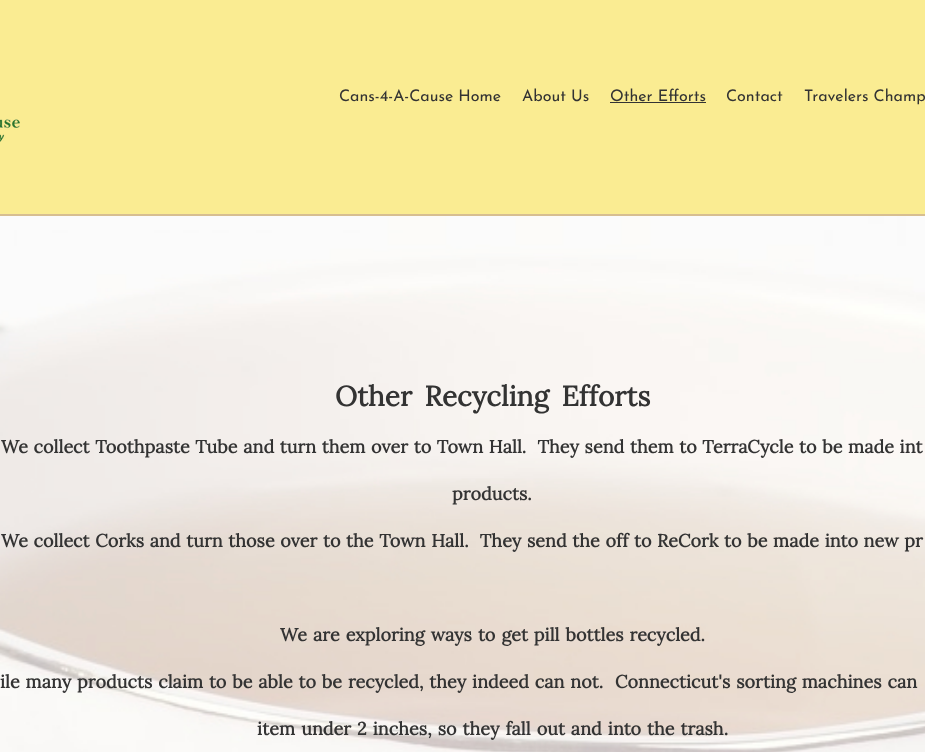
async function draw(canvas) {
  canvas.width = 925
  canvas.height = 752
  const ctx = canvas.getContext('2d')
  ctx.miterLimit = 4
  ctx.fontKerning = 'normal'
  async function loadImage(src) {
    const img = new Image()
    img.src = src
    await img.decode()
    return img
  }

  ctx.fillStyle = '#fff'
  ctx.fillRect(0, 0, 925, 752)
  ctx.fillStyle = '#faec92'
  ctx.fillRect(0, 0, 925, 214)
  ctx.font = '16px Josefin Sans'
  ctx.fillStyle = '#333'
  ctx.fillText('Cans-4-A-Cause Home', 339, 101)
  ctx.fillText('About Us', 522, 101)
  ctx.fillText('Other Efforts', 610, 101)
  ctx.fillRect(610, 102, 96, 1)
  ctx.fillText('Contact', 726, 101)
  ctx.fillText('Travelers Champ', 804, 101)
  ctx.drawImage(await loadImage('image0.png'), 0, 119, 20, 23)
  ctx.fillStyle = '#d7be91'
  ctx.fillRect(0, 214, 925, 2)
  ctx.drawImage(await loadImage('image1.png'), 0, 216, 925, 536)
  ctx.wordSpacing = '5px'
  ctx.font = 'bold 28px Lora'
  ctx.fillStyle = '#333'
  ctx.fillText('Other Recycling Efforts', 335, 406)
  ctx.wordSpacing = '0.9px'
  ctx.font = 'bold 18px Lora'
  ctx.fillText('We collect Toothpaste Tube and turn them over to Town Hall.  They send them to TerraCycle to be made int', 1, 453)
  ctx.wordSpacing = '0px'
  ctx.fillText('products.', 452, 500)
  ctx.wordSpacing = '0.9px'
  ctx.fillText('We collect Corks and turn those over to the Town Hall.  They send the off to ReCork to be made into new pr', 1, 547)
  ctx.wordSpacing = '1.25px'
  ctx.fillText('We are exploring ways to get pill bottles recycled.', 280, 641)
  ctx.wordSpacing = '1.1px'
  ctx.fillText('ile many products claim to be able to be recycled, they indeed can not.  Connecticut\'s sorting machines can', 0, 688)
  ctx.wordSpacing = '1.25px'
  ctx.fillText('item under 2 inches, so they fall out and into the trash.', 257, 735)
}

draw(document.querySelector('canvas'))
